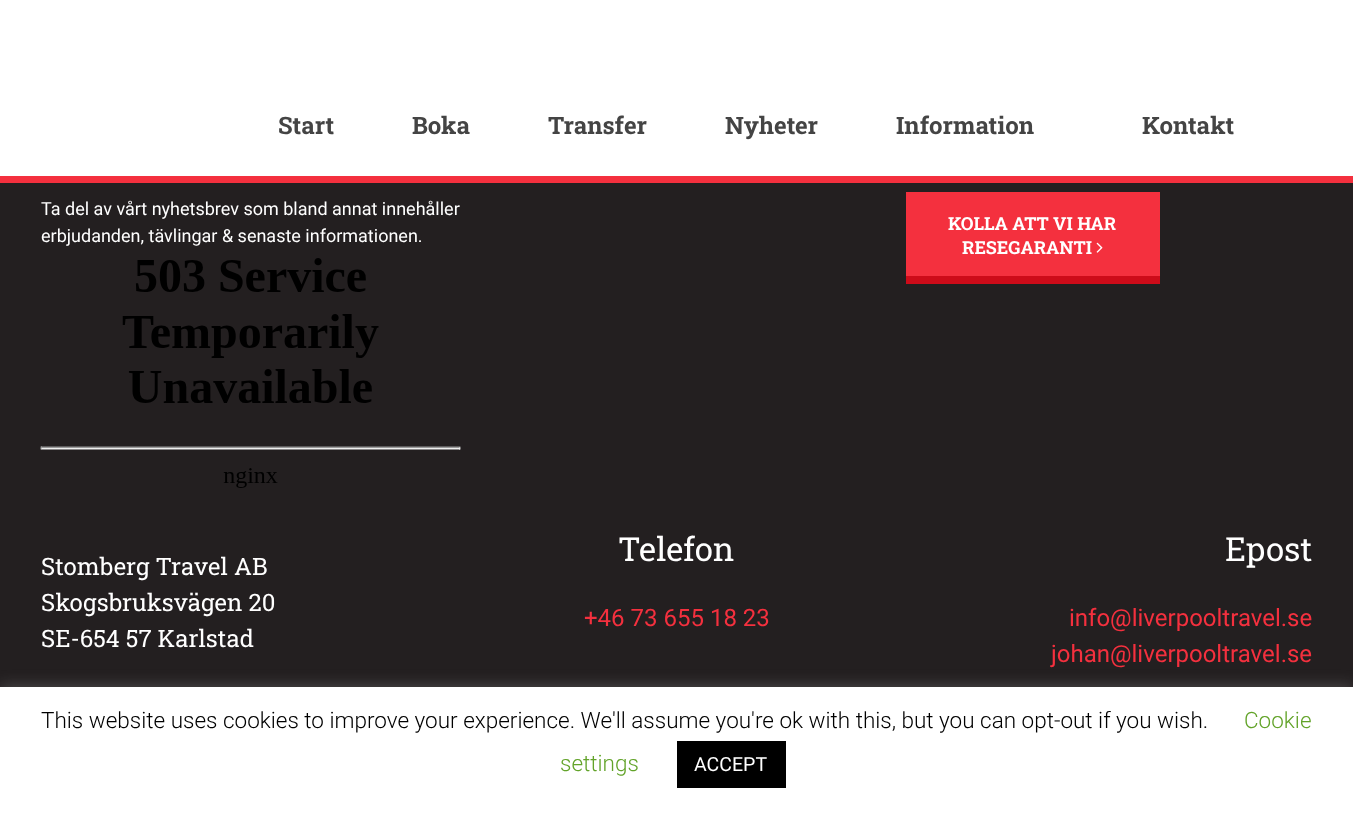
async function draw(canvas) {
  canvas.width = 1353
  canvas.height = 813
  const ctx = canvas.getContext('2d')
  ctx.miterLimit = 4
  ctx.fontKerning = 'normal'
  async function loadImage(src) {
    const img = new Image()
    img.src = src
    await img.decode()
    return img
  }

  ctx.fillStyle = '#231f20'
  ctx.fillRect(0, 0, 1353, 813)
  ctx.fillStyle = '#fff'
  ctx.fillRect(0, 0, 1353, 176)
  ctx.fillStyle = '#f4303e'
  ctx.fillRect(0, 176, 1353, 7)
  ctx.font = 'bold 24px Roboto Slab'
  ctx.fillStyle = '#444'
  ctx.fillText('Start', 278, 134)
  ctx.fillText('Boka', 412, 134)
  ctx.fillText('Transfer', 548, 134)
  ctx.fillText('Nyheter', 725, 134)
  ctx.fillText('Information', 896, 134)
  ctx.fillText('Kontakt', 1142, 134)
  ctx.font = '18px Roboto'
  ctx.fillStyle = '#fff'
  ctx.fillText('Ta del av vårt nyhetsbrev som bland annat innehåller', 41, 215)
  ctx.fillText('erbjudanden, tävlingar & senaste informationen.', 41, 242)
  ctx.drawImage(await loadImage('image0.png'), 40, 258, 421, 230)
  ctx.fillStyle = '#f4303e'
  ctx.fillRect(906, 192, 254, 84)
  ctx.fillStyle = '#cd0b19'
  ctx.fillRect(906, 276, 254, 8)
  ctx.font = 'bold 18px Roboto Slab'
  ctx.fillStyle = '#fff'
  ctx.fillText('KOLLA ATT VI HAR', 948, 230)
  ctx.fillText('RESEGARANTI', 962, 254)
  ctx.drawImage(await loadImage('image1.png'), 1096, 242, 7, 11)
  ctx.font = '24px Roboto Slab'
  ctx.fillText('Stomberg Travel AB', 41, 575)
  ctx.fillText('Skogsbruksvägen 20', 41, 611)
  ctx.fillText('SE-654 57 Karlstad', 41, 647)
  ctx.font = '33px Roboto Slab'
  ctx.fillText('Telefon', 618, 561)
  ctx.font = '24px Roboto'
  ctx.fillStyle = '#f4303e'
  ctx.fillText('+46 73 655 18 23', 584, 626)
  ctx.font = '33px Roboto Slab'
  ctx.fillStyle = '#fff'
  ctx.fillText('Epost', 1225, 561)
  ctx.font = '24px Roboto'
  ctx.fillStyle = '#f4303e'
  ctx.fillText('info@liverpooltravel.se', 1069, 626)
  ctx.fillText('johan@liverpooltravel.se', 1051, 662)
  ctx.fillStyle = '#acabab4d'
  ctx.filter = 'blur(7.5px)'
  ctx.beginPath()
  ctx.rect(0, 686, 1353, 126)
  ctx.fill()
  ctx.filter = 'none'
  ctx.fillStyle = '#fff'
  ctx.fillRect(0, 687, 1353, 126)
  ctx.font = '300 22.5px Roboto'
  ctx.fillStyle = '#000'
  ctx.fillText('This website uses cookies to improve your experience. We\'ll assume you\'re ok with this, but you can opt-out if you wish.', 41, 728)
  ctx.fillStyle = '#62a329'
  ctx.fillText('Cookie', 1244, 728)
  ctx.fillText('settings', 560, 771)
  ctx.fillStyle = '#000'
  ctx.fillRect(677, 741, 109, 47)
  ctx.font = '19.5px Roboto'
  ctx.fillStyle = '#fff'
  ctx.fillText('ACCEPT', 694, 771)
}

draw(document.querySelector('canvas'))
